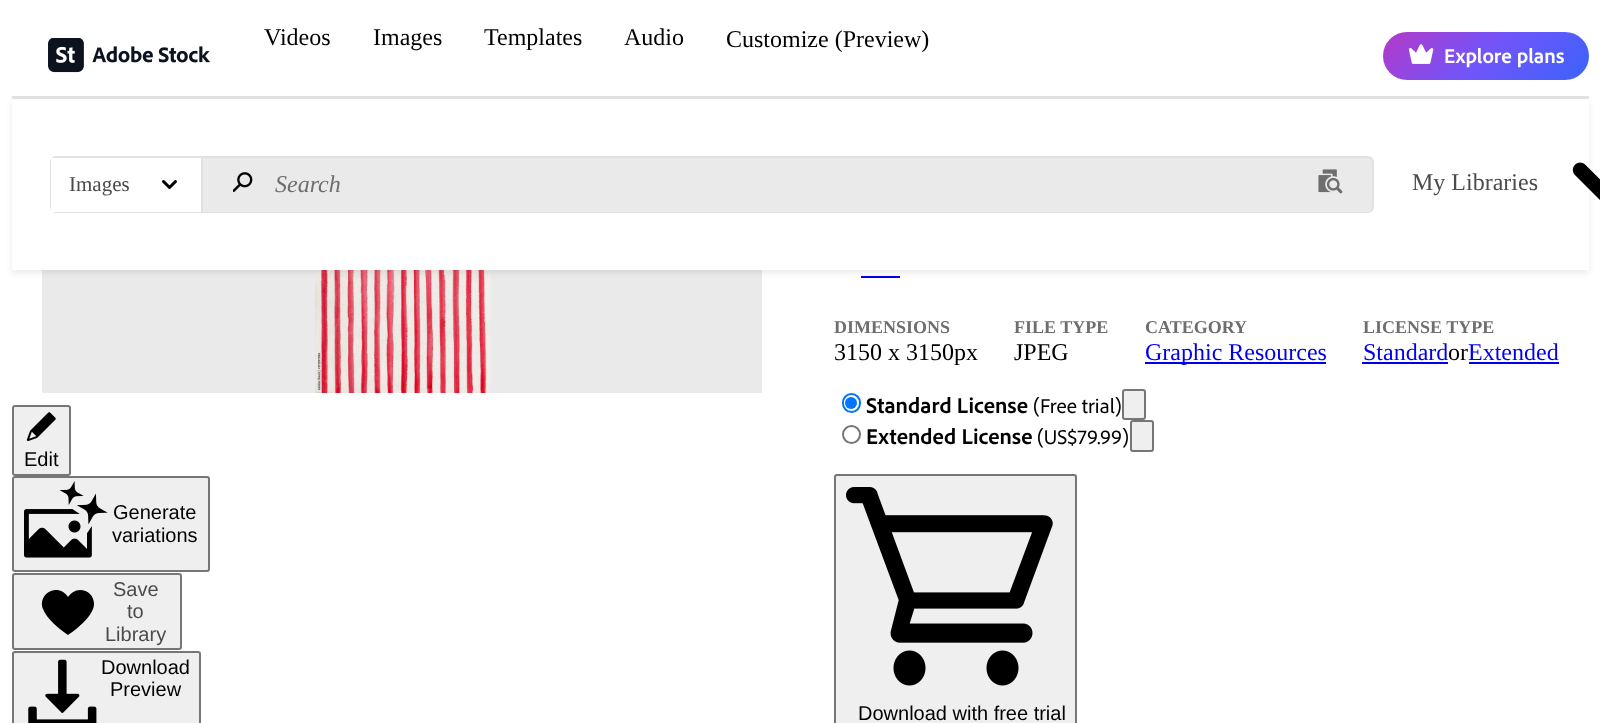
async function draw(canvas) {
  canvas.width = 1600
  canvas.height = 723
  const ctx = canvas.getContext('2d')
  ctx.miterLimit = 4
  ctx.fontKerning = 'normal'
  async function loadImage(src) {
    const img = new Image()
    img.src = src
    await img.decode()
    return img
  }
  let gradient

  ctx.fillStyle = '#fff'
  ctx.fillRect(0, 0, 1600, 723)
  ctx.fillStyle = '#eaeaea'
  ctx.fillRect(42, 270, 720, 123)
  ctx.drawImage(await loadImage('image6.png'), 315, 270, 176, 123)
  ctx.fillStyle = '#00e'
  ctx.fillRect(861, 276, 39, 2)
  ctx.fillStyle = '#3434341a'
  ctx.filter = 'blur(3px)'
  ctx.beginPath()
  ctx.rect(12, 102, 1577, 171)
  ctx.fill()
  ctx.filter = 'none'
  ctx.fillStyle = '#e1e1e1'
  ctx.fillRect(12, 96, 1577, 3)
  ctx.drawImage(await loadImage('image0.png'), 48, 38, 162, 35)
  ctx.font = '24px Liberation Serif'
  ctx.fillStyle = '#000'
  ctx.fillText('Videos', 264, 45)
  ctx.fillText('Images', 373, 45)
  ctx.fillText('Templates', 484, 45)
  ctx.fillText('Audio', 624, 45)
  ctx.fillText('Customize (Preview)', 726, 47)
  gradient = ctx.createLinearGradient(1422, -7.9, 1549, 119)
  gradient.addColorStop(0, '#b539c8')
  gradient.addColorStop(0.5, '#7155fa')
  gradient.addColorStop(1, '#3b63fb')
  ctx.fillStyle = gradient
  ctx.beginPath()
  ctx.roundRect(1383, 32, 206, 48, 24)
  ctx.fill()
  ctx.drawImage(await loadImage('image1.png'), 1408, 44, 26, 20)
  ctx.font = 'bold 21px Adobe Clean'
  ctx.fillStyle = '#fff'
  ctx.fillText('Explore plans', 1444, 63)
  ctx.fillRect(12, 99, 1577, 171)
  ctx.beginPath()
  ctx.roundRect(51, 157, 151, 55, [5, 0, 0, 5])
  ctx.strokeStyle = '#e1e1e1'
  ctx.lineWidth = 2
  ctx.stroke()
  ctx.fillRect(51, 158, 150, 54)
  ctx.font = '21px Liberation Serif'
  ctx.fillStyle = '#4b4b4b'
  ctx.fillText('Images', 69, 191)
  ctx.drawImage(await loadImage('image2.png'), 162, 180, 15, 9)
  ctx.fillStyle = '#eaeaea'
  ctx.beginPath()
  ctx.roundRect(203, 158, 1170, 54, [0, 5, 5, 0])
  ctx.fill()
  ctx.fillStyle = '#e1e1e1'
  ctx.beginPath()
  ctx.moveTo(202, 156)
  ctx.lineTo(1368, 156)
  ctx.bezierCurveTo(1371, 156, 1374, 159, 1374, 162)
  ctx.lineTo(1374, 207)
  ctx.bezierCurveTo(1374, 210, 1371, 213, 1368, 213)
  ctx.lineTo(202, 213)
  ctx.closePath()
  ctx.moveTo(202, 158)
  ctx.lineTo(1368, 158)
  ctx.bezierCurveTo(1370, 158, 1372, 160, 1372, 162)
  ctx.lineTo(1372, 207)
  ctx.bezierCurveTo(1372, 209, 1370, 212, 1368, 212)
  ctx.lineTo(202, 212)
  ctx.closePath()
  ctx.fill('evenodd')
  ctx.drawImage(await loadImage('image3.png'), 233, 172, 20, 20)
  ctx.font = 'italic 24px Liberation Serif'
  ctx.fillStyle = '#6e6e6e'
  ctx.fillText('Search', 275, 192)
  ctx.drawImage(await loadImage('image4.png'), 1318, 169, 25, 25)
  ctx.font = '24px Liberation Serif'
  ctx.fillStyle = '#4b4b4b'
  ctx.fillText('My Libraries', 1412, 190)
  ctx.drawImage(await loadImage('image5.png'), 1572, 162, 28, 38)
  ctx.fillStyle = '#efefef'
  ctx.beginPath()
  ctx.roundRect(13, 406, 57, 69, 2)
  ctx.fill()
  ctx.strokeStyle = '#767676'
  ctx.stroke()
  ctx.drawImage(await loadImage('image7.png'), 26, 412, 30, 29)
  ctx.font = '20px Liberation Sans'
  ctx.fillStyle = '#000'
  ctx.fillText('Edit', 24, 466)
  ctx.fillStyle = '#efefef'
  ctx.beginPath()
  ctx.roundRect(13, 477, 196, 94, 2)
  ctx.fill()
  ctx.stroke()
  ctx.drawImage(await loadImage('image8.png'), 24, 481, 84, 77)
  ctx.fillStyle = '#000'
  ctx.fillText('Generate', 113, 519)
  ctx.fillText('variations', 112, 542)
  ctx.fillStyle = '#efefef'
  ctx.beginPath()
  ctx.roundRect(13, 574, 168, 75, 2)
  ctx.fill()
  ctx.stroke()
  ctx.fillStyle = '#000'
  ctx.beginPath()
  ctx.moveTo(80, 590)
  ctx.bezierCurveTo(75, 590, 71, 593, 68, 597)
  ctx.bezierCurveTo(59, 582, 37, 593, 43, 609)
  ctx.bezierCurveTo(47, 619, 59, 629, 68, 635)
  ctx.bezierCurveTo(68, 635, 94, 618, 94, 604)
  ctx.bezierCurveTo(94, 596, 88, 590, 80, 590)
  ctx.closePath()
  ctx.fill('evenodd')
  ctx.fillStyle = '#4b4b4b'
  ctx.fillText('Save', 113, 596)
  ctx.fillText('to', 127, 618)
  ctx.fillText('Library', 105, 641)
  ctx.fillStyle = '#efefef'
  ctx.beginPath()
  ctx.roundRect(13, 652, 187, 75, 2)
  ctx.fill()
  ctx.stroke()
  ctx.drawImage(await loadImage('image9.png'), 28, 659, 69, 64)
  ctx.fillStyle = '#000'
  ctx.fillText('Download', 101, 674)
  ctx.fillText('Preview', 110, 696)
  ctx.font = 'bold 18px Liberation Serif'
  ctx.fillStyle = '#6e6e6e'
  ctx.fillText('DIMENSIONS', 834, 333)
  ctx.font = '24px Liberation Serif'
  ctx.fillStyle = '#000'
  ctx.fillText('3150 x 3150px', 834, 360)
  ctx.font = 'bold 18px Liberation Serif'
  ctx.fillStyle = '#6e6e6e'
  ctx.fillText('FILE TYPE', 1014, 333)
  ctx.font = '24px Liberation Serif'
  ctx.fillStyle = '#000'
  ctx.fillText('JPEG', 1014, 360)
  ctx.font = 'bold 18px Liberation Serif'
  ctx.fillStyle = '#6e6e6e'
  ctx.fillText('CATEGORY', 1145, 333)
  ctx.fillStyle = '#00e'
  ctx.fillRect(1145, 362, 181, 2)
  ctx.font = '24px Liberation Serif'
  ctx.fillText('Graphic Resources', 1145, 360)
  ctx.font = 'bold 18px Liberation Serif'
  ctx.fillStyle = '#6e6e6e'
  ctx.fillText('LICENSE TYPE', 1363, 333)
  ctx.font = '24px Liberation Serif'
  ctx.fillStyle = '#00e'
  ctx.fillText('Standard', 1363, 360)
  ctx.fillStyle = '#000'
  ctx.fillText('or', 1448, 360)
  ctx.fillStyle = '#00e'
  ctx.fillRect(1362, 362, 86, 2)
  ctx.fillRect(1469, 362, 90, 2)
  ctx.fillText('Extended', 1468, 360)
  ctx.beginPath()
  ctx.roundRect(843, 394, 17, 18, 8.5)
  ctx.strokeStyle = '#0075ff'
  ctx.stroke()
  ctx.fillStyle = '#0075ff'
  ctx.beginPath()
  ctx.arc(851, 403, 6, 0, 2 * Math.PI)
  ctx.fill()
  ctx.font = 'bold 22.5px Adobe Clean'
  ctx.fillStyle = '#000'
  ctx.fillText('Standard License', 866, 413)
  ctx.font = '21px Adobe Clean'
  ctx.fillText('(Free trial)', 1033, 413)
  ctx.fillStyle = '#efefef'
  ctx.beginPath()
  ctx.roundRect(1123, 390, 22, 29, 2)
  ctx.fill()
  ctx.strokeStyle = '#767676'
  ctx.stroke()
  ctx.beginPath()
  ctx.arc(851.5, 434.5, 8.5, 0, 2 * Math.PI)
  ctx.stroke()
  ctx.font = 'bold 22.5px Adobe Clean'
  ctx.fillStyle = '#000'
  ctx.fillText('Extended License', 866, 444)
  ctx.font = '21px Adobe Clean'
  ctx.fillText('(US$79.99)', 1037, 444)
  ctx.fillStyle = '#efefef'
  ctx.beginPath()
  ctx.roundRect(1131, 421, 22, 30, 2)
  ctx.fill()
  ctx.stroke()
  ctx.beginPath()
  ctx.roundRect(835, 475, 241, 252, 2)
  ctx.fill()
  ctx.stroke()
  ctx.drawImage(await loadImage('image10.png'), 846, 487, 207, 199)
  ctx.font = '20px Liberation Sans'
  ctx.fillStyle = '#000'
  ctx.fillText('Download with free trial', 858, 720)
}

draw(document.querySelector('canvas'))
